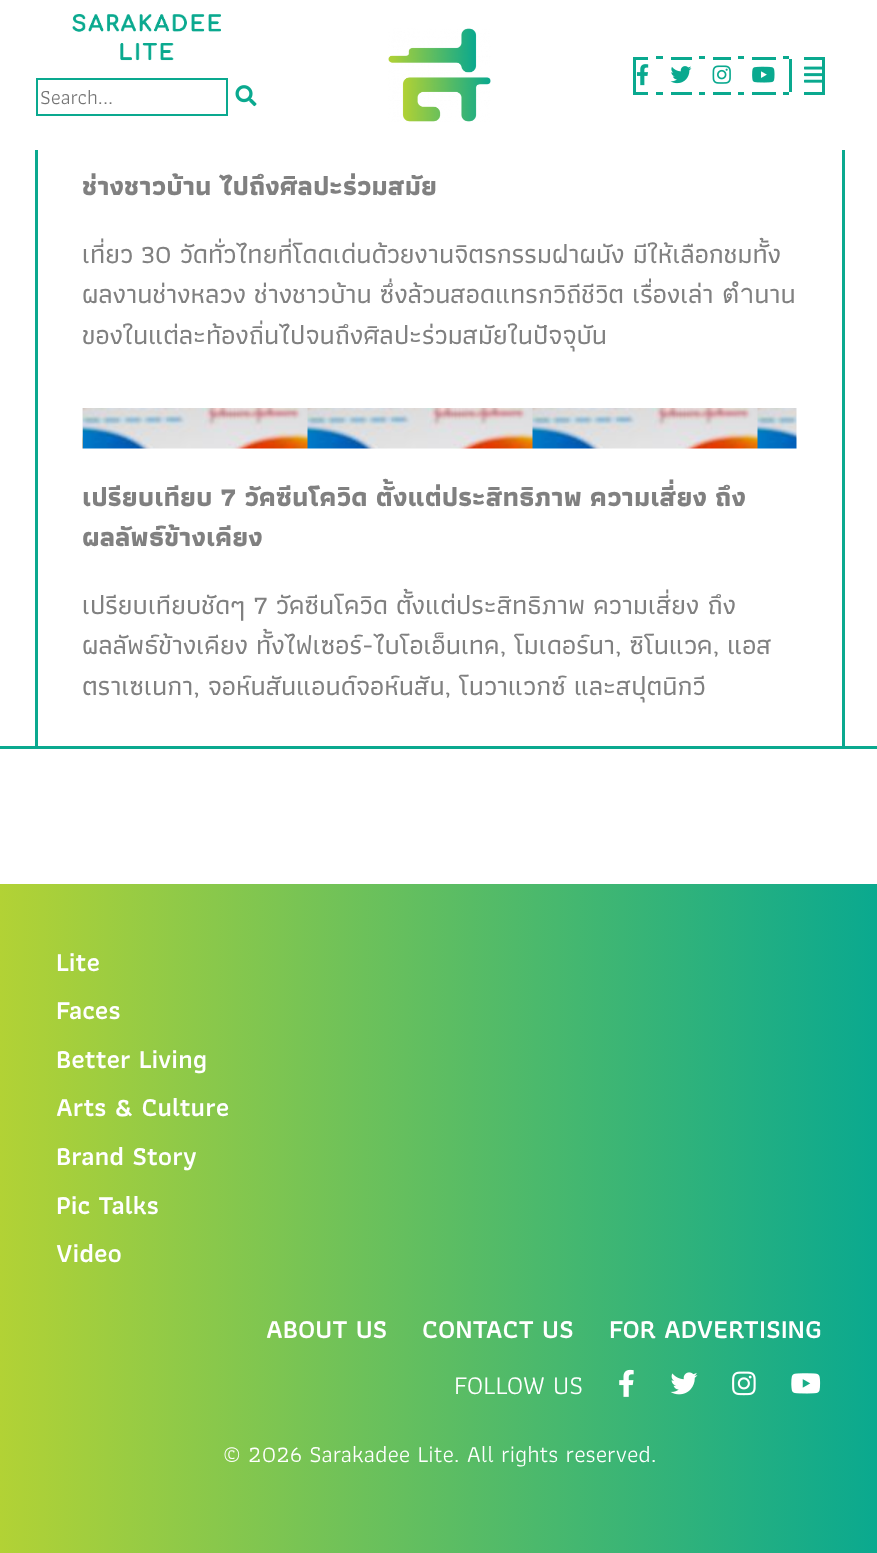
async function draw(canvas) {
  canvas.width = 877
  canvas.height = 1553
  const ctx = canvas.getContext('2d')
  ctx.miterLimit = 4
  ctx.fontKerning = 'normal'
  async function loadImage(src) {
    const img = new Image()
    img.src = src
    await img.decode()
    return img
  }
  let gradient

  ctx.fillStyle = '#fff'
  ctx.fillRect(0, 0, 877, 1553)
  ctx.drawImage(await loadImage('image0.png'), 388, 28, 103, 94)
  ctx.fillStyle = '#0aa98f'
  ctx.fillRect(633, 57, 15, 3)
  ctx.fillRect(633, 92, 15, 3)
  ctx.fillRect(633, 57, 3, 38)
  ctx.fillRect(656, 56, 7, 3)
  ctx.fillRect(656, 92, 7, 3)
  ctx.fillRect(671, 57, 21, 3)
  ctx.fillRect(671, 92, 21, 3)
  ctx.fillRect(699, 56, 6, 3)
  ctx.fillRect(699, 92, 6, 3)
  ctx.fillRect(713, 57, 18, 3)
  ctx.fillRect(713, 92, 18, 3)
  ctx.fillRect(738, 56, 6, 3)
  ctx.fillRect(738, 92, 6, 3)
  ctx.fillRect(752, 57, 24, 3)
  ctx.fillRect(752, 92, 24, 3)
  ctx.fillRect(783, 56, 6, 3)
  ctx.fillRect(783, 92, 6, 3)
  ctx.fillRect(804, 57, 21, 3)
  ctx.fillRect(822, 57, 3, 38)
  ctx.fillRect(804, 92, 21, 3)
  ctx.drawImage(await loadImage('image1.png'), 636, 64, 13, 22)
  ctx.drawImage(await loadImage('image2.png'), 670, 66, 22, 18)
  ctx.drawImage(await loadImage('image3.png'), 712, 65, 19, 19)
  ctx.drawImage(await loadImage('image4.png'), 752, 66, 23, 17)
  ctx.fillRect(789, 59, 3, 33)
  ctx.drawImage(await loadImage('image5.png'), 804, 66, 18, 17)
  ctx.drawImage(await loadImage('image6.png'), 72, 14, 149, 47)
  ctx.strokeStyle = '#0aa98f'
  ctx.lineWidth = 2
  ctx.strokeRect(37, 79, 190, 36)
  ctx.font = '21px Athiti'
  ctx.fillStyle = '#757575'
  ctx.fillText('Search...', 40, 104)
  ctx.drawImage(await loadImage('image7.png'), 235, 85, 22, 22)
  ctx.fillStyle = '#0aa98f'
  ctx.fillRect(0, 746, 877, 3)
  ctx.fillRect(842, 150, 3, 596)
  ctx.fillRect(35, 150, 3, 596)
  ctx.font = 'bold 27px Athiti'
  ctx.fillStyle = '#808080'
  ctx.fillText('ช่างชาวบ้าน ไปถึงศิลปะร่วมสมัย', 82, 195)
  ctx.font = '500 27px Athiti'
  ctx.fillText('เที่ยว 30 วัดทั่วไทยที่โดดเด่นด้วยงานจิตรกรรมฝาผนัง มีให้เลือกชมทั้ง', 82, 263)
  ctx.fillText('ผลงานช่างหลวง ช่างชาวบ้าน ซึ่งล้วนสอดแทรกวิถีชีวิต เรื่องเล่า ตำนาน', 82, 303)
  ctx.fillText('ของในแต่ละท้องถิ่นไปจนถึงศิลปะร่วมสมัยในปัจจุบัน', 82, 344)
  ctx.drawImage(await loadImage('image8.png'), 82, 408, 715, 41)
  ctx.font = 'bold 27px Athiti'
  ctx.fillText('เปรียบเทียบ 7 วัคซีนโควิด ตั้งแต่ประสิทธิภาพ ความเสี่ยง ถึง', 82, 506)
  ctx.fillText('ผลลัพธ์ข้างเคียง', 82, 546)
  ctx.font = '500 27px Athiti'
  ctx.fillText('เปรียบเทียบชัดๆ 7 วัคซีนโควิด ตั้งแต่ประสิทธิภาพ ความเสี่ยง ถึง', 82, 614)
  ctx.fillText('ผลลัพธ์ข้างเคียง ทั้งไฟเซอร์-ไบโอเอ็นเทค, โมเดอร์นา, ซิโนแวค, แอส', 82, 654)
  ctx.fillText('ตราเซเนกา, จอห์นสันแอนด์จอห์นสัน, โนวาแวกซ์ และสปุตนิกวี', 82, 695)
  gradient = ctx.createLinearGradient(0, 1219, 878, 1219)
  gradient.addColorStop(0, '#b2d235')
  gradient.addColorStop(1, '#0aa98f')
  ctx.fillStyle = gradient
  ctx.fillRect(0, 884, 877, 669)
  ctx.font = '600 27px Athiti'
  ctx.fillStyle = '#fff'
  ctx.fillText('Lite', 56, 971)
  ctx.fillText('Faces', 56, 1019)
  ctx.fillText('Better Living', 56, 1068)
  ctx.fillText('Arts & Culture', 56, 1116)
  ctx.fillText('Brand Story', 56, 1165)
  ctx.fillText('Pic Talks', 56, 1214)
  ctx.fillText('Video', 56, 1262)
  ctx.fillText('ABOUT US', 266, 1338)
  ctx.fillText('CONTACT US', 422, 1338)
  ctx.fillText('FOR ADVERTISING', 609, 1338)
  ctx.font = '27px Athiti'
  ctx.fillText('FOLLOW US', 454, 1394)
  ctx.drawImage(await loadImage('image9.png'), 619, 1369, 15, 28)
  ctx.drawImage(await loadImage('image10.png'), 670, 1372, 28, 23)
  ctx.drawImage(await loadImage('image11.png'), 732, 1371, 24, 25)
  ctx.drawImage(await loadImage('image12.png'), 791, 1373, 30, 21)
  ctx.font = '24px Athiti'
  ctx.fillText('© 2026 Sarakadee Lite. All rights reserved.', 223, 1462)
}

draw(document.querySelector('canvas'))
